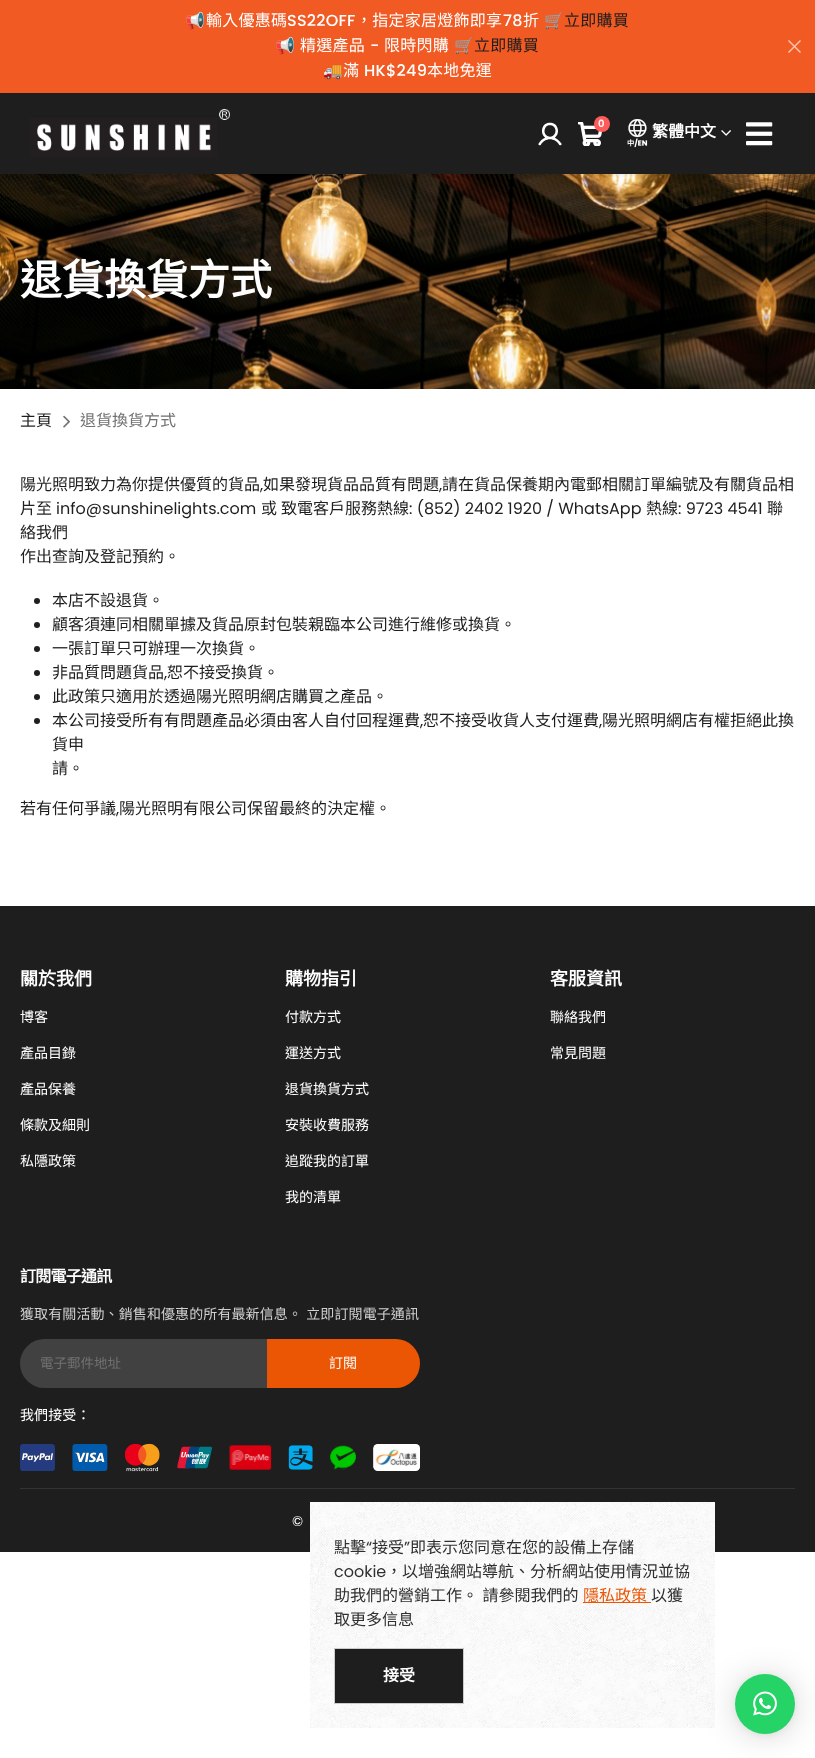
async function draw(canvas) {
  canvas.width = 815
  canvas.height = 1758
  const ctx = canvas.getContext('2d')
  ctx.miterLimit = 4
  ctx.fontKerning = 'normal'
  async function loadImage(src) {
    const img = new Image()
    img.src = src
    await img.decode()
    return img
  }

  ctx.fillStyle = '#fff'
  ctx.fillRect(0, 0, 815, 1758)
  ctx.fillStyle = '#f15a22'
  ctx.fillRect(0, 0, 815, 93)
  ctx.letterSpacing = '0.25px'
  ctx.font = '16px Noto Color Emoji'
  ctx.fillStyle = '#fff'
  ctx.fillText('📢', 185, 26)
  ctx.font = '16px Noto Sans CJK HK'
  ctx.fillText('輸入優惠碼', 206, 26)
  ctx.font = '500 16px Poppins'
  ctx.fillText('SS22OFF', 287, 26)
  ctx.font = '16px Noto Sans CJK HK'
  ctx.fillText('，指定家居燈飾即享', 356, 26)
  ctx.font = '500 16px Poppins'
  ctx.fillText('78', 503, 26)
  ctx.font = '16px Noto Sans CJK HK'
  ctx.fillText('折', 523, 26)
  ctx.font = '16px Noto Color Emoji'
  ctx.fillText('🛒', 544, 26)
  ctx.font = '16px Noto Sans CJK HK'
  ctx.fillStyle = '#1e1e1e'
  ctx.fillText('立即購買', 564, 26)
  ctx.font = '16px Noto Color Emoji'
  ctx.fillStyle = '#fff'
  ctx.fillText('📢', 275, 51)
  ctx.font = '16px Noto Sans CJK HK'
  ctx.fillText('精選產品', 300, 51)
  ctx.font = '500 16px Poppins'
  ctx.fillText('-', 370, 51)
  ctx.font = '16px Noto Sans CJK HK'
  ctx.fillText('限時閃購', 384, 51)
  ctx.font = '16px Noto Color Emoji'
  ctx.fillText('🛒', 454, 51)
  ctx.font = '16px Noto Sans CJK HK'
  ctx.fillStyle = '#1e1e1e'
  ctx.fillText('立即購買', 474, 51)
  ctx.font = '16px Noto Color Emoji'
  ctx.fillStyle = '#fff'
  ctx.fillText('🚚', 323, 76)
  ctx.font = '16px Noto Sans CJK HK'
  ctx.fillText('滿', 343, 76)
  ctx.font = '500 16px Poppins'
  ctx.fillText('HK$249', 364, 76)
  ctx.font = '16px Noto Sans CJK HK'
  ctx.fillText('本地免運', 427, 76)
  ctx.fillStyle = '#fac5b2'
  ctx.beginPath()
  ctx.moveTo(789, 40)
  ctx.lineTo(801, 52)
  ctx.lineTo(800, 53)
  ctx.lineTo(788, 41)
  ctx.closePath()
  ctx.fill()
  ctx.beginPath()
  ctx.moveTo(800, 40)
  ctx.lineTo(801, 41)
  ctx.lineTo(789, 53)
  ctx.lineTo(788, 52)
  ctx.closePath()
  ctx.fill()
  ctx.drawImage(await loadImage('image6.png'), 0, 174, 815, 215)
  ctx.fillStyle = '#0000000f'
  ctx.filter = 'blur(1px)'
  ctx.beginPath()
  ctx.rect(0, 95, 815, 81)
  ctx.fill()
  ctx.filter = 'none'
  ctx.fillStyle = '#1e1e1e'
  ctx.fillRect(0, 93, 815, 81)
  ctx.drawImage(await loadImage('image0.png'), 30, 109, 200, 49)
  ctx.drawImage(await loadImage('image1.png'), 538, 122, 24, 24)
  ctx.drawImage(await loadImage('image2.png'), 578, 122, 24, 24)
  ctx.fillStyle = '#ff5b5b'
  ctx.beginPath()
  ctx.arc(602, 124, 8, 0, 2 * Math.PI)
  ctx.fill()
  ctx.letterSpacing = '0px'
  ctx.font = '600 10px Poppins'
  ctx.fillStyle = '#fff'
  ctx.fillText('0', 598, 127)
  ctx.drawImage(await loadImage('image3.png'), 627, 119, 21, 29)
  ctx.font = 'bold 16px Noto Sans CJK HK'
  ctx.fillText('繁體中文', 652, 137)
  ctx.drawImage(await loadImage('image4.png'), 721, 130, 10, 6)
  ctx.drawImage(await loadImage('image5.png'), 746, 122, 27, 24)
  ctx.font = 'bold 42px Noto Sans CJK HK'
  ctx.fillText('退貨換貨方式', 20, 295)
  ctx.font = '16px Noto Sans CJK HK'
  ctx.fillStyle = '#1e1e1e'
  ctx.fillText('主頁', 20, 426)
  ctx.drawImage(await loadImage('image7.png'), 63, 415, 7, 13)
  ctx.fillStyle = '#717171'
  ctx.fillText('退貨換貨方式', 80, 426)
  ctx.fillStyle = '#1e1e1e'
  ctx.fillText('陽光照明致力為你提供優質的貨品', 20, 490)
  ctx.font = '16px Poppins'
  ctx.fillText(',', 260, 490)
  ctx.font = '16px Noto Sans CJK HK'
  ctx.fillText('如果發現貨品品質有問題', 263, 490)
  ctx.font = '16px Poppins'
  ctx.fillText(',', 439, 490)
  ctx.font = '16px Noto Sans CJK HK'
  ctx.fillText('請在貨品保養期內電郵相關訂單編號及有關貨品相', 442, 490)
  ctx.fillText('片至', 20, 514)
  ctx.font = '16px Poppins'
  ctx.fillText('info@sunshinelights.com', 56, 514)
  ctx.font = '16px Noto Sans CJK HK'
  ctx.fillText('或', 261, 514)
  ctx.fillText('致電客戶服務熱線', 281, 514)
  ctx.font = '16px Poppins'
  ctx.fillText(': (852) 2402 1920 / WhatsApp', 409, 514)
  ctx.font = '16px Noto Sans CJK HK'
  ctx.fillText('熱線', 646, 514)
  ctx.font = '16px Poppins'
  ctx.fillText(': 9723 4541', 678, 514)
  ctx.font = '16px Noto Sans CJK HK'
  ctx.fillText('聯', 767, 514)
  ctx.fillText('絡我們', 20, 538)
  ctx.fillText('作出查詢及登記預約。', 20, 562)
  ctx.beginPath()
  ctx.arc(37, 601, 3, 0, 2 * Math.PI)
  ctx.fill()
  ctx.fillText('本店不設退貨。', 52, 606)
  ctx.beginPath()
  ctx.arc(37, 625, 3, 0, 2 * Math.PI)
  ctx.fill()
  ctx.fillText('顧客須連同相關單據及貨品原封包裝親臨本公司進行維修或換貨。', 52, 630)
  ctx.beginPath()
  ctx.arc(37, 649, 3, 0, 2 * Math.PI)
  ctx.fill()
  ctx.fillText('一張訂單只可辦理一次換貨。', 52, 654)
  ctx.beginPath()
  ctx.arc(37, 673, 3, 0, 2 * Math.PI)
  ctx.fill()
  ctx.fillText('非品質問題貨品', 52, 678)
  ctx.fillText('恕不接受換貨。', 167, 678)
  ctx.font = '16px Poppins'
  ctx.fillText(',', 164, 678)
  ctx.beginPath()
  ctx.arc(37, 697, 3, 0, 2 * Math.PI)
  ctx.fill()
  ctx.font = '16px Noto Sans CJK HK'
  ctx.fillText('此政策只適用於透過陽光照明網店購買之產品。', 52, 702)
  ctx.beginPath()
  ctx.arc(37, 721, 3, 0, 2 * Math.PI)
  ctx.fill()
  ctx.fillText('本公司接受所有有問題產品必須由客人自付回程運費', 52, 726)
  ctx.fillText('恕不接受收貨人支付運費', 423, 726)
  ctx.fillText('陽光照明網店有權拒絕此換', 602, 726)
  ctx.font = '16px Poppins'
  ctx.fillText(',', 420, 726)
  ctx.fillText(',', 599, 726)
  ctx.font = '16px Noto Sans CJK HK'
  ctx.fillText('貨申', 52, 750)
  ctx.fillText('請。', 52, 774)
  ctx.fillText('若有任何爭議', 20, 814)
  ctx.font = '16px Poppins'
  ctx.fillText(',', 116, 814)
  ctx.font = '16px Noto Sans CJK HK'
  ctx.fillText('陽光照明有限公司保留最終的決定權。', 119, 814)
  ctx.fillRect(0, 906, 815, 646)
  ctx.font = 'bold 18px Noto Sans CJK HK'
  ctx.fillStyle = '#fff'
  ctx.fillText('關於我們', 20, 985)
  ctx.font = '14px Noto Sans CJK HK'
  ctx.fillText('博客', 20, 1022)
  ctx.fillText('產品目錄', 20, 1058)
  ctx.fillText('產品保養', 20, 1094)
  ctx.fillText('條款及細則', 20, 1130)
  ctx.fillText('私隱政策', 20, 1166)
  ctx.font = 'bold 18px Noto Sans CJK HK'
  ctx.fillText('購物指引', 285, 985)
  ctx.font = '14px Noto Sans CJK HK'
  ctx.fillText('付款方式', 285, 1022)
  ctx.fillText('運送方式', 285, 1058)
  ctx.fillText('退貨換貨方式', 285, 1094)
  ctx.fillText('安裝收費服務', 285, 1130)
  ctx.fillText('追蹤我的訂單', 285, 1166)
  ctx.fillText('我的清單', 285, 1202)
  ctx.font = 'bold 18px Noto Sans CJK HK'
  ctx.fillText('客服資訊', 550, 985)
  ctx.font = '14px Noto Sans CJK HK'
  ctx.fillText('聯絡我們', 550, 1022)
  ctx.fillText('常見問題', 550, 1058)
  ctx.letterSpacing = '-0.75px'
  ctx.font = 'bold 16px Noto Sans CJK HK'
  ctx.fillText('訂閱電子通訊', 20, 1282)
  ctx.letterSpacing = '0.1px'
  ctx.wordSpacing = '1px'
  ctx.font = '14px Noto Sans CJK HK'
  ctx.fillStyle = '#d0d0d0'
  ctx.fillText('獲取有關活動、銷售和優惠的所有最新信息。 立即訂閱電子通訊', 20, 1319)
  ctx.fillStyle = '#414141'
  ctx.beginPath()
  ctx.roundRect(20, 1339, 247, 49, [24.5, 0, 0, 24.5])
  ctx.fill()
  ctx.letterSpacing = '0px'
  ctx.wordSpacing = '0px'
  ctx.font = '13.5px Noto Sans CJK HK'
  ctx.fillStyle = '#717171'
  ctx.fillText('電子郵件地址', 40, 1368)
  ctx.fillStyle = '#ea5604'
  ctx.beginPath()
  ctx.roundRect(267, 1339, 153, 49, [0, 24.5, 24.5, 0])
  ctx.fill()
  ctx.font = '14px Noto Sans CJK HK'
  ctx.fillStyle = '#fff'
  ctx.fillText('訂閱', 329, 1368)
  ctx.letterSpacing = '0.1px'
  ctx.fillText('我們接受：', 20, 1420)
  ctx.drawImage(await loadImage('image8.png'), 20, 1443, 400, 29)
  ctx.fillStyle = '#313438'
  ctx.fillRect(20, 1488, 775, 1)
  ctx.font = '14px Poppins'
  ctx.fillStyle = '#fff'
  ctx.fillText('©', 292, 1526)
  ctx.drawImage(await loadImage('image9.png'), 310, 1502, 405, 226)
  ctx.letterSpacing = '0px'
  ctx.font = '16px Noto Sans CJK HK'
  ctx.fillStyle = '#2f2f2f'
  ctx.fillText('點擊', 334, 1553)
  ctx.font = '16px Poppins'
  ctx.fillText('“', 366, 1553)
  ctx.font = '16px Noto Sans CJK HK'
  ctx.fillText('接受', 372, 1553)
  ctx.font = '16px Poppins'
  ctx.fillText('”', 404, 1553)
  ctx.font = '16px Noto Sans CJK HK'
  ctx.fillText('即表示您同意在您的設備上存儲', 410, 1553)
  ctx.font = '16px Poppins'
  ctx.fillText('cookie', 334, 1577)
  ctx.font = '16px Noto Sans CJK HK'
  ctx.fillText('，以增強網站導航、分析網站使用情況並協', 386, 1577)
  ctx.wordSpacing = '1px'
  ctx.fillText('助我們的營銷工作。 請參閱我們的', 334, 1601)
  ctx.fillStyle = '#ea5604'
  ctx.fillRect(583, 1602, 68, 1)
  ctx.wordSpacing = '0px'
  ctx.fillText('隱私政策', 583, 1601)
  ctx.fillStyle = '#2f2f2f'
  ctx.fillText('以獲', 651, 1601)
  ctx.fillText('取更多信息', 334, 1625)
  ctx.fillStyle = '#1e1e1e'
  ctx.beginPath()
  ctx.rect(334.5, 1648.5, 129, 55)
  ctx.fill()
  ctx.strokeStyle = '#ccc'
  ctx.stroke()
  ctx.font = 'bold 16px Noto Sans CJK HK'
  ctx.fillStyle = '#fff'
  ctx.fillText('接受', 383, 1681)
  ctx.fillStyle = '#00000029'
  ctx.filter = 'blur(16px)'
  ctx.beginPath()
  ctx.roundRect(735, 1676, 60, 60, 30)
  ctx.fill()
  ctx.filter = 'none'
  ctx.fillStyle = '#0000000f'
  ctx.filter = 'blur(3px)'
  ctx.beginPath()
  ctx.roundRect(735, 1675, 60, 60, 30)
  ctx.fill()
  ctx.filter = 'none'
  ctx.fillStyle = '#25d366'
  ctx.beginPath()
  ctx.arc(765, 1704, 30, 0, 2 * Math.PI)
  ctx.fill()
  ctx.drawImage(await loadImage('image10.png'), 753, 1691, 24, 25)
}

draw(document.querySelector('canvas'))
